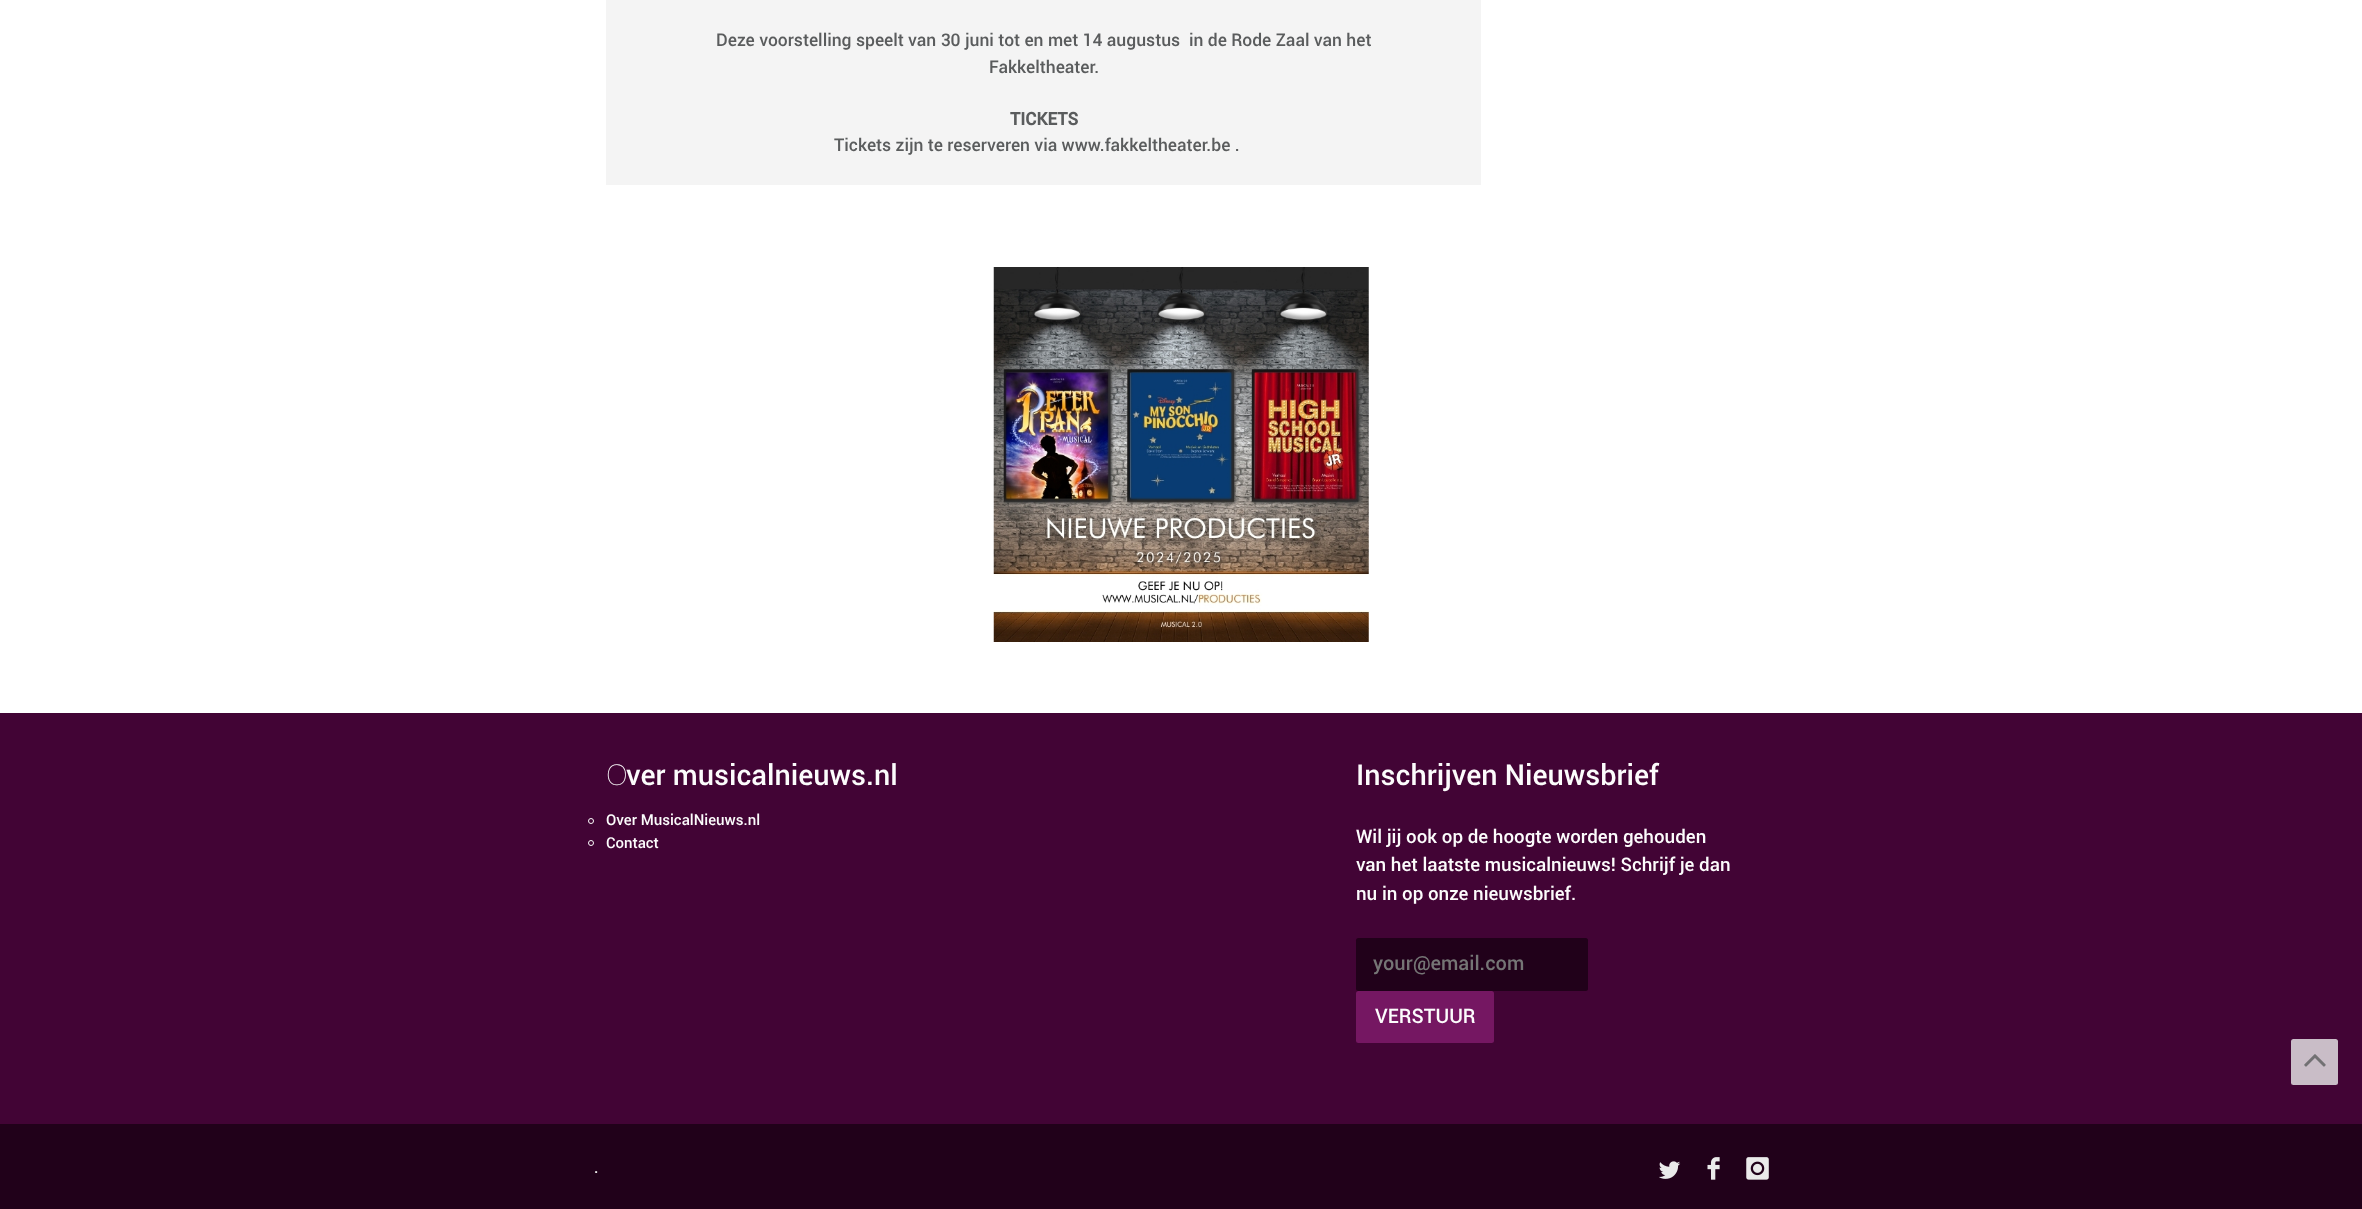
async function draw(canvas) {
  canvas.width = 2362
  canvas.height = 1209
  const ctx = canvas.getContext('2d')
  ctx.miterLimit = 4
  ctx.fontKerning = 'normal'
  async function loadImage(src) {
    const img = new Image()
    img.src = src
    await img.decode()
    return img
  }

  ctx.fillStyle = '#fff'
  ctx.fillRect(0, 0, 2362, 1209)
  ctx.fillStyle = '#f4f4f4'
  ctx.fillRect(606, 0, 875, 185)
  ctx.font = '500 17.5px Roboto'
  ctx.fillStyle = '#5a5c5d'
  ctx.fillText('Deze voorstelling speelt van 30 juni tot en met 14 augustus  in de Rode Zaal van het', 716, 46)
  ctx.fillText('Fakkeltheater.', 989, 73)
  ctx.font = 'bold 17.5px Roboto'
  ctx.fillText('TICKETS', 1010, 125)
  ctx.font = '500 17.5px Roboto'
  ctx.fillText('Tickets zijn te reserveren via www.fakkeltheater.be .', 834, 151)
  ctx.drawImage(await loadImage('image0.png'), 993, 267, 376, 375)
  ctx.fillStyle = '#420435'
  ctx.fillRect(0, 713, 2362, 411)
  ctx.font = '100 28.75px Noto Sans'
  ctx.fillStyle = '#fcfcfc'
  ctx.fillText('O', 606, 785)
  ctx.font = '500 28.75px Roboto'
  ctx.fillText('ver musicalnieuws.nl', 626, 785)
  ctx.beginPath()
  ctx.arc(591, 821, 2.5, 0, 2 * Math.PI)
  ctx.strokeStyle = '#fcfcfc'
  ctx.stroke()
  ctx.font = '500 15px Roboto'
  ctx.fillText('Over MusicalNieuws.nl', 606, 825)
  ctx.beginPath()
  ctx.arc(591, 843, 2.5, 0, 2 * Math.PI)
  ctx.stroke()
  ctx.fillText('Contact', 606, 848)
  ctx.font = '500 28.75px Roboto'
  ctx.fillText('Inschrijven Nieuwsbrief', 1356, 785)
  ctx.font = '500 18.75px Roboto'
  ctx.fillText('Wil jij ook op de hoogte worden gehouden', 1356, 843)
  ctx.fillText('van het laatste musicalnieuws! Schrijf je dan', 1356, 871)
  ctx.fillText('nu in op onze nieuwsbrief.', 1356, 900)
  ctx.fillStyle = '#21011a'
  ctx.beginPath()
  ctx.roundRect(1356, 938, 232, 53, 2.5)
  ctx.fill()
  ctx.font = '500 20px Roboto'
  ctx.fillStyle = '#757575'
  ctx.fillText('your@email.com', 1373, 970)
  ctx.fillStyle = '#751762'
  ctx.beginPath()
  ctx.roundRect(1356, 991, 138, 52, 2.5)
  ctx.fill()
  ctx.fillStyle = '#fcfcfc'
  ctx.fillText('VERSTUUR', 1375, 1023)
  ctx.fillStyle = '#21011a'
  ctx.fillRect(0, 1124, 2362, 85)
  ctx.font = '500 16px Roboto'
  ctx.fillStyle = '#eaeaea'
  ctx.fillText('.', 594, 1173)
  ctx.drawImage(await loadImage('image1.png'), 1659, 1161, 22, 18)
  ctx.drawImage(await loadImage('image2.png'), 1707, 1157, 13, 23)
  ctx.drawImage(await loadImage('image3.png'), 1746, 1157, 23, 23)
  ctx.fillStyle = '#c9bdc7'
  ctx.beginPath()
  ctx.roundRect(2291, 1039, 47, 46, 2.5)
  ctx.fill()
  ctx.drawImage(await loadImage('image4.png'), 2304, 1054, 22, 13)
}

draw(document.querySelector('canvas'))
